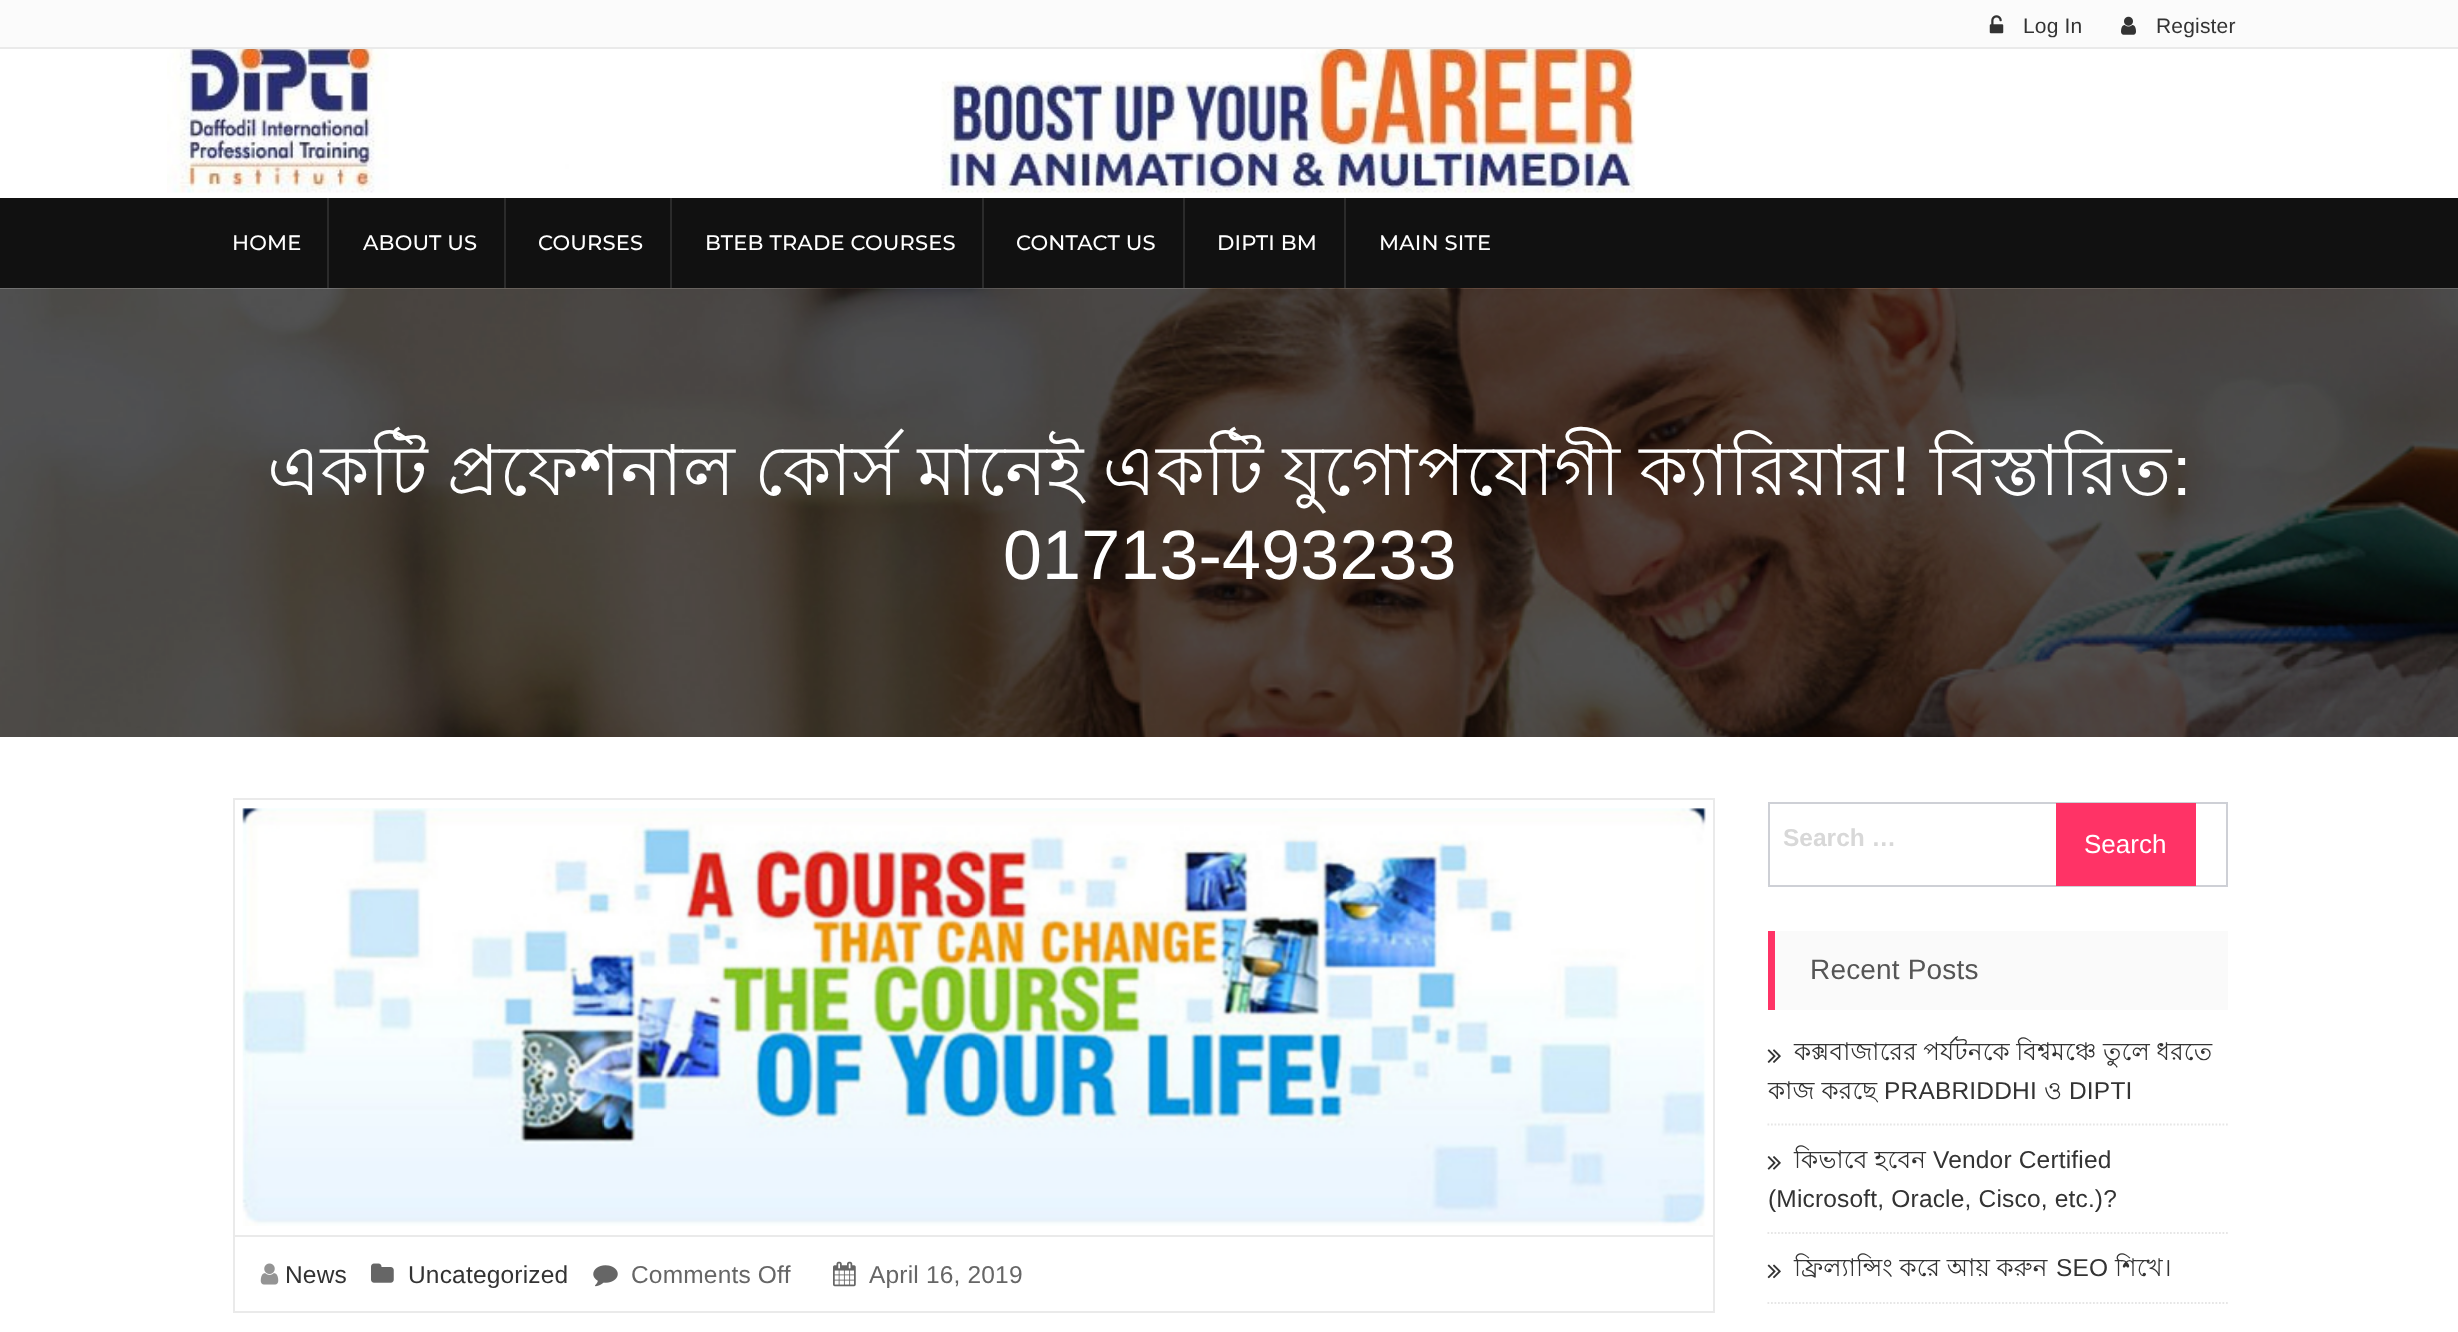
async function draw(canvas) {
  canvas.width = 2458
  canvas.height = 1332
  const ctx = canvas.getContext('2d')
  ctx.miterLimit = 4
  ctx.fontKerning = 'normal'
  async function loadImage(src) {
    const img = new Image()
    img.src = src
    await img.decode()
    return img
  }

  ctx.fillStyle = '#fff'
  ctx.fillRect(0, 0, 2458, 1332)
  ctx.drawImage(await loadImage('image0.png'), 167, 49, 1469, 144)
  ctx.fillStyle = '#fbfbfb'
  ctx.fillRect(0, 0, 2458, 47)
  ctx.fillStyle = '#eaeaea'
  ctx.fillRect(0, 47, 2458, 2)
  ctx.drawImage(await loadImage('image1.png'), 1989, 15, 15, 19)
  ctx.letterSpacing = '0.18px'
  ctx.font = '21px Liberation Sans'
  ctx.fillStyle = '#333'
  ctx.fillText('Log In', 2023, 33)
  ctx.drawImage(await loadImage('image2.png'), 2121, 16, 15, 19)
  ctx.fillText('Register', 2156, 33)
  ctx.fillStyle = '#111'
  ctx.fillRect(0, 198, 2458, 90)
  ctx.fillStyle = '#2b2b2b'
  ctx.fillRect(327, 198, 2, 91)
  ctx.font = '500 21px Montserrat'
  ctx.fillStyle = '#fff'
  ctx.fillText('HOME', 232, 250)
  ctx.fillStyle = '#2b2b2b'
  ctx.fillRect(504, 198, 2, 91)
  ctx.fillStyle = '#fff'
  ctx.fillText('ABOUT US', 363, 250)
  ctx.fillStyle = '#2b2b2b'
  ctx.fillRect(670, 198, 2, 91)
  ctx.fillStyle = '#fff'
  ctx.fillText('COURSES', 538, 250)
  ctx.fillStyle = '#2b2b2b'
  ctx.fillRect(982, 198, 2, 91)
  ctx.fillStyle = '#fff'
  ctx.fillText('BTEB TRADE COURSES', 705, 250)
  ctx.fillStyle = '#2b2b2b'
  ctx.fillRect(1183, 198, 2, 91)
  ctx.fillStyle = '#fff'
  ctx.fillText('CONTACT US', 1016, 250)
  ctx.fillStyle = '#2b2b2b'
  ctx.fillRect(1344, 198, 2, 91)
  ctx.fillStyle = '#fff'
  ctx.fillText('DIPTI BM', 1217, 250)
  ctx.fillText('MAIN SITE', 1379, 250)
  ctx.drawImage(await loadImage('image3.png'), 0, 288, 2458, 449)
  ctx.wordSpacing = '-0.5px'
  ctx.font = '70px Lohit Bengali'
  ctx.fillText('একটি প্রফেশনাল কোর্স মানেই একটি যুগোপযোগী ক্যারিয়ার', 267, 495)
  ctx.wordSpacing = '0px'
  ctx.font = '70px Liberation Sans'
  ctx.fillText('!', 1891, 495)
  ctx.font = '70px Lohit Bengali'
  ctx.fillText('বিস্তারিত', 1930, 495)
  ctx.font = '70px Liberation Sans'
  ctx.fillText(':', 2172, 495)
  ctx.fillText('01713-493233', 1003, 579)
  ctx.strokeStyle = '#eaeaea'
  ctx.lineWidth = 2
  ctx.strokeRect(234, 799, 1480, 437)
  ctx.drawImage(await loadImage('image4.png'), 242, 808, 1464, 418)
  ctx.fillStyle = '#eaeaea'
  ctx.fillRect(1713, 1237, 2, 76)
  ctx.fillRect(233, 1311, 1482, 2)
  ctx.fillRect(233, 1237, 2, 76)
  ctx.drawImage(await loadImage('image5.png'), 260, 1263, 19, 22)
  ctx.font = '24.5px Liberation Sans'
  ctx.fillStyle = '#333'
  ctx.fillText('News', 285, 1283)
  ctx.drawImage(await loadImage('image6.png'), 371, 1263, 23, 20)
  ctx.fillText('Uncategorized', 408, 1283)
  ctx.drawImage(await loadImage('image7.png'), 593, 1265, 25, 22)
  ctx.fillStyle = '#666'
  ctx.fillText('Comments Off', 631, 1283)
  ctx.drawImage(await loadImage('image8.png'), 833, 1261, 23, 26)
  ctx.fillText('April 16, 2019', 869, 1283)
  ctx.strokeStyle = '#ced0d6'
  ctx.strokeRect(1769, 803, 458, 83)
  ctx.letterSpacing = '0px'
  ctx.font = 'bold 24.5px Liberation Sans'
  ctx.fillStyle = '#d8d8d8'
  ctx.fillText('Search …', 1783, 846)
  ctx.fillStyle = '#f36'
  ctx.fillRect(2056, 803, 140, 83)
  ctx.font = '26px Liberation Sans'
  ctx.fillStyle = '#fff'
  ctx.fillText('Search', 2084, 853)
  ctx.fillStyle = '#fafafa'
  ctx.fillRect(1775, 931, 453, 79)
  ctx.fillStyle = '#f36'
  ctx.fillRect(1768, 931, 7, 79)
  ctx.letterSpacing = '0.18px'
  ctx.font = '28px Liberation Sans'
  ctx.fillStyle = '#555'
  ctx.fillText('Recent Posts', 1810, 979)
  ctx.beginPath()
  ctx.moveTo(1767.5, 1124.5)
  ctx.lineTo(2228, 1124.5)
  ctx.strokeStyle = '#e6e6e6'
  ctx.lineWidth = 1.8
  ctx.setLineDash([1.75, 1.75])
  ctx.stroke()
  ctx.drawImage(await loadImage('image9.png'), 1767, 1049, 14, 14)
  ctx.wordSpacing = '-0.5px'
  ctx.font = '24.5px Lohit Bengali'
  ctx.fillStyle = '#333'
  ctx.fillText('কক্সবাজারের পর্যটনকে বিশ্বমঞ্চে তুলে ধরতে', 1794, 1060)
  ctx.wordSpacing = '0px'
  ctx.fillText('কাজ করছে', 1768, 1099)
  ctx.font = '24.5px Liberation Sans'
  ctx.fillText('PRABRIDDHI', 1884, 1099)
  ctx.font = '24.5px Lohit Bengali'
  ctx.fillText('ও', 2044, 1099)
  ctx.font = '24.5px Liberation Sans'
  ctx.fillText('DIPTI', 2069, 1099)
  ctx.beginPath()
  ctx.moveTo(1767.5, 1233)
  ctx.lineTo(2228, 1233)
  ctx.stroke()
  ctx.drawImage(await loadImage('image10.png'), 1767, 1156, 14, 14)
  ctx.font = '24.5px Lohit Bengali'
  ctx.fillText('কিভাবে হবেন', 1794, 1168)
  ctx.font = '24.5px Liberation Sans'
  ctx.fillText('Vendor Certified', 1933, 1168)
  ctx.fillText('(Microsoft, Oracle, Cisco, etc.)?', 1768, 1207)
  ctx.beginPath()
  ctx.moveTo(1767.5, 1303)
  ctx.lineTo(2228, 1303)
  ctx.stroke()
  ctx.drawImage(await loadImage('image11.png'), 1767, 1264, 14, 15)
  ctx.wordSpacing = '-0.5px'
  ctx.font = '24.5px Lohit Bengali'
  ctx.fillText('ফ্রিল্যান্সিং করে আয় করুন', 1794, 1276)
  ctx.wordSpacing = '0px'
  ctx.font = '24.5px Liberation Sans'
  ctx.fillText('SEO', 2056, 1276)
  ctx.font = '24.5px Lohit Bengali'
  ctx.fillText('শিখে।', 2115, 1276)
}

draw(document.querySelector('canvas'))
